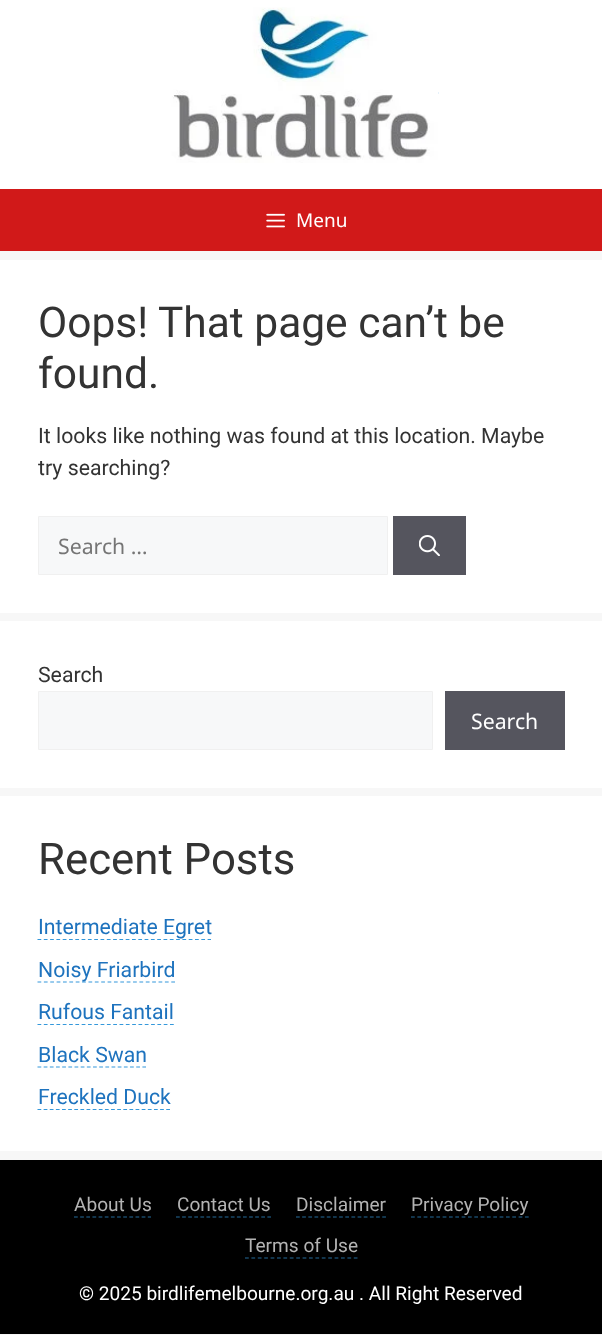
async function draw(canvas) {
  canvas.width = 602
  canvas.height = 1335
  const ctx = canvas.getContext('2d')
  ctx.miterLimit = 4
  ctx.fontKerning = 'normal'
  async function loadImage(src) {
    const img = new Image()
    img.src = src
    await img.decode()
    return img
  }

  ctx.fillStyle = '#f7f7f7'
  ctx.fillRect(0, 0, 602, 1335)
  ctx.fillStyle = '#fff'
  ctx.fillRect(0, 0, 602, 189)
  ctx.beginPath()
  ctx.moveTo(164, 93)
  ctx.lineTo(439, 93)
  ctx.strokeStyle = '#3498db'
  ctx.lineWidth = 1.2
  ctx.setLineDash([3.75, 2.56])
  ctx.stroke()
  ctx.drawImage(await loadImage('image0.png'), 164, 7, 275, 156)
  ctx.fillStyle = '#d11919'
  ctx.fillRect(0, 189, 602, 62)
  ctx.drawImage(await loadImage('image1.png'), 266, 213, 19, 15)
  ctx.font = '19px Noto Sans'
  ctx.fillStyle = '#fff'
  ctx.fillText('Menu', 296, 227)
  ctx.fillRect(0, 260, 602, 353)
  ctx.font = '42.5px Roboto'
  ctx.fillStyle = '#333'
  ctx.fillText('Oops! That page can’t be', 38, 337)
  ctx.fillText('found.', 38, 388)
  ctx.font = '21.25px Roboto'
  ctx.fillText('It looks like nothing was found at this location. Maybe', 38, 443)
  ctx.fillText('try searching?', 38, 475)
  ctx.fillStyle = '#f7f8f9'
  ctx.beginPath()
  ctx.rect(38.5, 516.5, 349, 58)
  ctx.fill()
  ctx.strokeStyle = '#f0f0f0'
  ctx.lineWidth = 1
  ctx.setLineDash([])
  ctx.stroke()
  ctx.font = '21.25px Noto Sans'
  ctx.fillStyle = '#757575'
  ctx.fillText('Search …', 58, 554)
  ctx.fillStyle = '#55555e'
  ctx.fillRect(393, 516, 73, 59)
  ctx.drawImage(await loadImage('image2.png'), 419, 535, 21, 21)
  ctx.fillStyle = '#fff'
  ctx.fillRect(0, 621, 602, 167)
  ctx.font = '21.25px Roboto'
  ctx.fillStyle = '#333'
  ctx.fillText('Search', 38, 682)
  ctx.fillStyle = '#f7f8f9'
  ctx.beginPath()
  ctx.rect(38.5, 691.5, 394, 58)
  ctx.fill()
  ctx.stroke()
  ctx.fillStyle = '#55555e'
  ctx.fillRect(445, 691, 120, 59)
  ctx.font = '21.25px Noto Sans'
  ctx.fillStyle = '#fff'
  ctx.fillText('Search', 471, 729)
  ctx.fillRect(0, 796, 602, 355)
  ctx.font = '43.75px Roboto'
  ctx.fillStyle = '#333'
  ctx.fillText('Recent Posts', 38, 874)
  ctx.beginPath()
  ctx.moveTo(37.5, 939.5)
  ctx.lineTo(211, 939.5)
  ctx.strokeStyle = '#3498db'
  ctx.lineWidth = 1.2
  ctx.setLineDash([3.75, 2.55])
  ctx.stroke()
  ctx.font = '21.25px Roboto'
  ctx.fillStyle = '#1e73be'
  ctx.fillText('Intermediate Egret', 38, 934)
  ctx.beginPath()
  ctx.moveTo(37.5, 982)
  ctx.lineTo(175, 982)
  ctx.setLineDash([3.75, 2.62])
  ctx.stroke()
  ctx.fillText('Noisy Friarbird', 38, 977)
  ctx.fillText('Rufous Fantail', 38, 1019)
  ctx.beginPath()
  ctx.moveTo(37.5, 1024.5)
  ctx.lineTo(174, 1024.5)
  ctx.setLineDash([3.75, 2.56])
  ctx.stroke()
  ctx.fillText('Black Swan', 38, 1062)
  ctx.beginPath()
  ctx.moveTo(37.5, 1067)
  ctx.lineTo(146, 1067)
  ctx.setLineDash([3.75, 2.42])
  ctx.stroke()
  ctx.fillText('Freckled Duck', 38, 1104)
  ctx.beginPath()
  ctx.moveTo(37.5, 1109.5)
  ctx.lineTo(170, 1109.5)
  ctx.setLineDash([3.75, 2.38])
  ctx.stroke()
  ctx.fillStyle = '#000'
  ctx.fillRect(0, 1160, 602, 174)
  ctx.font = '19.1px Roboto'
  ctx.fillStyle = '#b3b3b3'
  ctx.fillText('About Us', 74, 1211)
  ctx.beginPath()
  ctx.moveTo(74, 1217)
  ctx.lineTo(151, 1217)
  ctx.strokeStyle = '#246a99'
  ctx.setLineDash([3.75, 2.4])
  ctx.stroke()
  ctx.fillText('Contact Us', 177, 1211)
  ctx.beginPath()
  ctx.moveTo(176, 1217)
  ctx.lineTo(271, 1217)
  ctx.setLineDash([3.75, 2.34])
  ctx.stroke()
  ctx.fillText('Disclaimer', 296, 1211)
  ctx.beginPath()
  ctx.moveTo(296, 1217)
  ctx.lineTo(386, 1217)
  ctx.setLineDash([3.75, 2.41])
  ctx.stroke()
  ctx.fillText('Privacy Policy', 411, 1211)
  ctx.beginPath()
  ctx.moveTo(411, 1217)
  ctx.lineTo(529, 1217)
  ctx.setLineDash([3.75, 2.58])
  ctx.stroke()
  ctx.fillText('Terms of Use', 245, 1252)
  ctx.beginPath()
  ctx.moveTo(245, 1258)
  ctx.lineTo(357.5, 1258)
  ctx.setLineDash([3.75, 2.65])
  ctx.stroke()
  ctx.fillStyle = '#fff'
  ctx.fillText('© 2025 birdlifemelbourne.org.au . All Right Reserved', 79, 1300)
}

draw(document.querySelector('canvas'))
